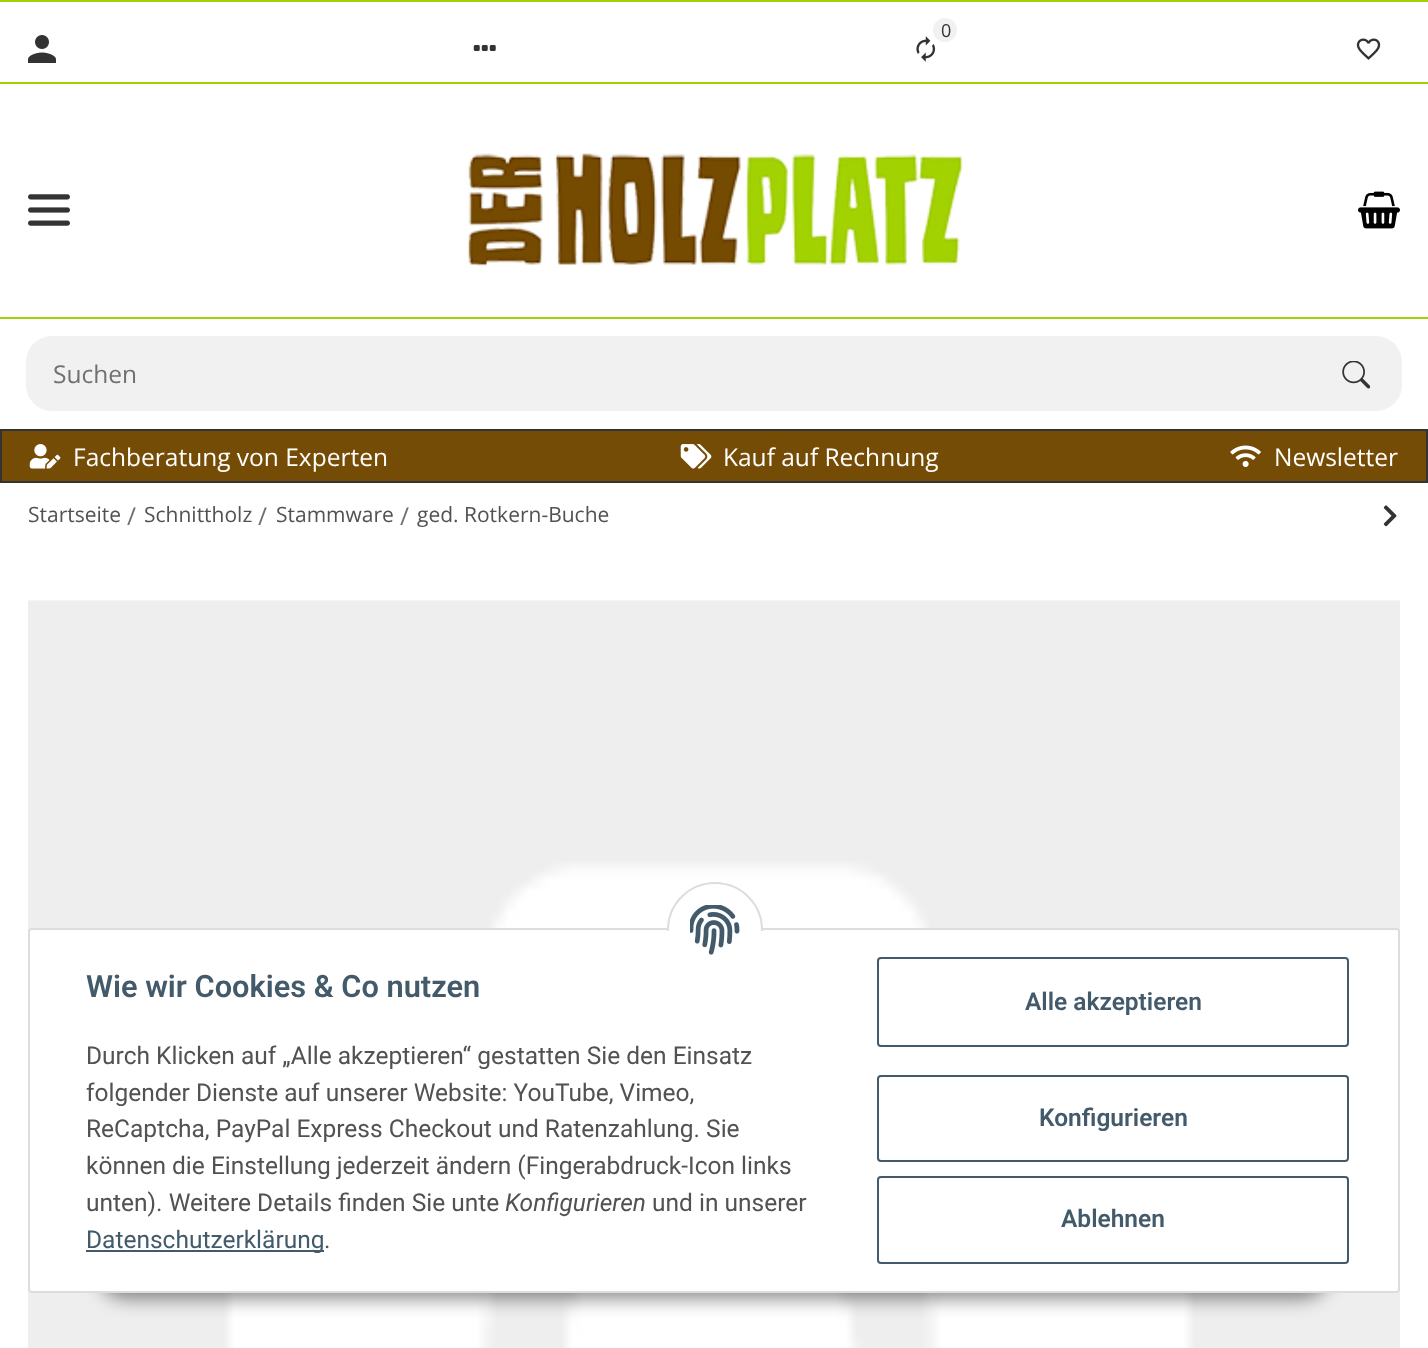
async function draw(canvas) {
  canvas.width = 1428
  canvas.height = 1348
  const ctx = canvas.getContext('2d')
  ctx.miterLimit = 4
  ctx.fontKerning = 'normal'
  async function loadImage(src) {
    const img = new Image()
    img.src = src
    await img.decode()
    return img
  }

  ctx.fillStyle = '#fff'
  ctx.fillRect(0, 0, 1428, 1348)
  ctx.fillStyle = '#a2d107'
  ctx.fillRect(0, 0, 1428, 2)
  ctx.fillRect(0, 82, 1428, 2)
  ctx.drawImage(await loadImage('image0.png'), 916, 36, 20, 26)
  ctx.fillStyle = '#f1f1f1'
  ctx.beginPath()
  ctx.arc(945, 30, 13, 0, 2 * Math.PI)
  ctx.fill()
  ctx.strokeStyle = '#fff'
  ctx.lineWidth = 2
  ctx.stroke()
  ctx.font = '18px Open Sans'
  ctx.fillStyle = '#333'
  ctx.fillText('0', 941, 37)
  ctx.drawImage(await loadImage('image1.png'), 28, 35, 28, 28)
  ctx.drawImage(await loadImage('image2.png'), 473, 45, 23, 6)
  ctx.drawImage(await loadImage('image3.png'), 1356, 38, 25, 22)
  ctx.fillStyle = '#a2d107'
  ctx.fillRect(0, 317, 1428, 2)
  ctx.drawImage(await loadImage('image4.png'), 28, 194, 42, 32)
  ctx.drawImage(await loadImage('image5.png'), 468, 153, 495, 114)
  ctx.drawImage(await loadImage('image6.png'), 1358, 191, 42, 38)
  ctx.fillStyle = '#f1f1f1'
  ctx.beginPath()
  ctx.roundRect(26, 336, 1376, 75, 26)
  ctx.fill()
  ctx.font = '24.5px Open Sans'
  ctx.fillStyle = '#707070'
  ctx.fillText('Suchen', 53, 383)
  ctx.drawImage(await loadImage('image7.png'), 1342, 361, 28, 28)
  ctx.fillStyle = '#744c06'
  ctx.beginPath()
  ctx.rect(1, 430, 1426, 52)
  ctx.fill()
  ctx.strokeStyle = '#333'
  ctx.stroke()
  ctx.drawImage(await loadImage('image8.png'), 29, 444, 32, 25)
  ctx.fillStyle = '#fff'
  ctx.fillText('Fachberatung von Experten', 73, 466)
  ctx.drawImage(await loadImage('image9.png'), 680, 444, 32, 25)
  ctx.fillText('Kauf auf Rechnung', 723, 466)
  ctx.drawImage(await loadImage('image10.png'), 1230, 445, 31, 22)
  ctx.fillText('Newsletter', 1274, 466)
  ctx.font = '21px Open Sans'
  ctx.fillStyle = '#525252'
  ctx.fillText('Startseite', 28, 522)
  ctx.font = '24.5px Open Sans'
  ctx.fillStyle = '#707070'
  ctx.fillText('/', 127, 525)
  ctx.font = '21px Open Sans'
  ctx.fillStyle = '#525252'
  ctx.fillText('Schnittholz', 144, 522)
  ctx.font = '24.5px Open Sans'
  ctx.fillStyle = '#707070'
  ctx.fillText('/', 258, 525)
  ctx.font = '21px Open Sans'
  ctx.fillStyle = '#525252'
  ctx.fillText('Stammware', 276, 522)
  ctx.font = '24.5px Open Sans'
  ctx.fillStyle = '#707070'
  ctx.fillText('/', 400, 525)
  ctx.font = '21px Open Sans'
  ctx.fillStyle = '#525252'
  ctx.fillText('ged. Rotkern-Buche', 417, 522)
  ctx.drawImage(await loadImage('image11.png'), 1383, 505, 14, 22)
  ctx.drawImage(await loadImage('image12.png'), 28, 600, 1372, 748)
  ctx.fillStyle = '#00000073'
  ctx.filter = 'blur(9px)'
  ctx.beginPath()
  ctx.roundRect(98, 1243, 1232, 56, 28)
  ctx.fill()
  ctx.filter = 'none'
  ctx.fillStyle = '#fff'
  ctx.beginPath()
  ctx.roundRect(29, 929, 1370, 363, 3)
  ctx.fill()
  ctx.strokeStyle = '#ddd'
  ctx.stroke()
  ctx.beginPath()
  ctx.arc(715, 930, 47, 0, 2 * Math.PI)
  ctx.fill()
  ctx.stroke()
  ctx.fillRect(667, 931, 96, 47)
  ctx.drawImage(await loadImage('image13.png'), 690, 905, 50, 50)
  ctx.font = '600 30.75px Roboto'
  ctx.fillStyle = '#435a6b'
  ctx.fillText('Wie wir Cookies & Co nutzen', 86, 997)
  ctx.font = '24.5px Roboto'
  ctx.fillStyle = '#525252'
  ctx.fillText('Durch Klicken auf „Alle akzeptieren“ gestatten Sie den Einsatz', 86, 1064)
  ctx.fillText('folgender Dienste auf unserer Website: YouTube, Vimeo,', 86, 1101)
  ctx.fillText('ReCaptcha, PayPal Express Checkout und Ratenzahlung. Sie', 86, 1137)
  ctx.fillText('können die Einstellung jederzeit ändern (Fingerabdruck-Icon links', 86, 1174)
  ctx.fillText('unten). Weitere Details finden Sie unte', 86, 1211)
  ctx.font = 'italic 24.5px Roboto'
  ctx.fillText('Konfigurieren', 505, 1211)
  ctx.font = '24.5px Roboto'
  ctx.fillText('und in unserer', 652, 1211)
  ctx.fillStyle = '#435a6b'
  ctx.fillRect(86, 1250, 238, 2)
  ctx.fillText('Datenschutzerklärung', 86, 1248)
  ctx.fillStyle = '#525252'
  ctx.fillText('.', 324, 1248)
  ctx.beginPath()
  ctx.roundRect(878, 958, 470, 88, 3)
  ctx.strokeStyle = '#435a6b'
  ctx.stroke()
  ctx.font = '600 24.5px Roboto'
  ctx.fillStyle = '#435a6b'
  ctx.fillText('Alle akzeptieren', 1025, 1010)
  ctx.beginPath()
  ctx.roundRect(878, 1076, 470, 85, 3)
  ctx.stroke()
  ctx.fillText('Konfigurieren', 1039, 1126)
  ctx.beginPath()
  ctx.roundRect(878, 1177, 470, 86, 3)
  ctx.stroke()
  ctx.fillText('Ablehnen', 1061, 1227)
}

draw(document.querySelector('canvas'))
